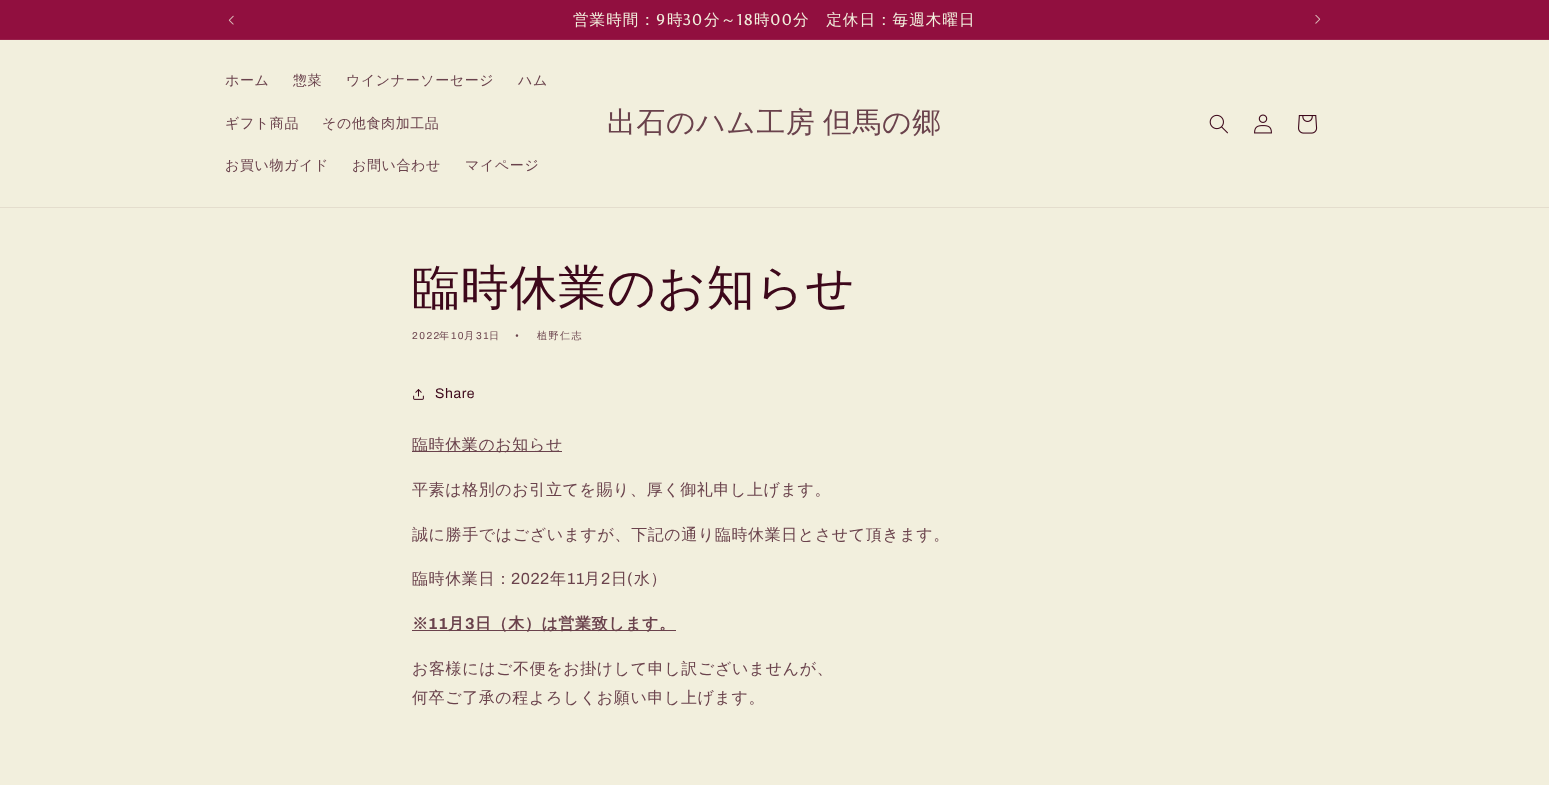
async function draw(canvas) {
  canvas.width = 1549
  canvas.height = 785
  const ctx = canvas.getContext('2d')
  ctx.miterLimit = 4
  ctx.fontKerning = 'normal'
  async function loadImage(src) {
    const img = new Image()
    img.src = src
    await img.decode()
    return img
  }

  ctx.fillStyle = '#f2efdd'
  ctx.fillRect(0, 0, 1549, 785)
  ctx.fillStyle = '#910f3f'
  ctx.fillRect(0, 0, 1549, 39)
  ctx.fillStyle = '#99214c'
  ctx.fillRect(0, 39, 1549, 1)
  ctx.drawImage(await loadImage('image0.png'), 228, 15, 6, 10)
  ctx.letterSpacing = '1px'
  ctx.font = '500 15.6px WenQuanYi Zen Hei'
  ctx.fillStyle = '#f2efdd'
  ctx.fillText('営業時間：', 573, 25)
  ctx.font = '15.6px Asul'
  ctx.fillText('9', 656, 25)
  ctx.font = '500 15.6px WenQuanYi Zen Hei'
  ctx.fillText('時', 667, 25)
  ctx.font = '15.6px Asul'
  ctx.fillText('30', 683, 25)
  ctx.font = '500 15.6px WenQuanYi Zen Hei'
  ctx.fillText('分～', 704, 25)
  ctx.font = '15.6px Asul'
  ctx.fillText('18', 737, 25)
  ctx.font = '500 15.6px WenQuanYi Zen Hei'
  ctx.fillText('時', 754, 25)
  ctx.font = '15.6px Asul'
  ctx.fillText('00', 770, 25)
  ctx.font = '500 15.6px WenQuanYi Zen Hei'
  ctx.fillText('分　定休日：毎週木曜日', 793, 25)
  ctx.drawImage(await loadImage('image1.png'), 1315, 14, 6, 10)
  ctx.fillStyle = '#e4ddcd'
  ctx.fillRect(0, 207, 1549, 1)
  ctx.letterSpacing = '0.6px'
  ctx.font = '500 14px WenQuanYi Zen Hei'
  ctx.fillStyle = '#6a424c'
  ctx.fillText('ホーム', 225, 85)
  ctx.fillText('惣菜', 293, 85)
  ctx.fillText('ウインナーソーセージ', 346, 85)
  ctx.fillText('ハム', 518, 85)
  ctx.fillText('ギフト商品', 225, 128)
  ctx.fillText('その他食肉加工品', 322, 128)
  ctx.fillText('お買い物ガイド', 225, 170)
  ctx.fillText('お問い合わせ', 352, 170)
  ctx.fillText('マイページ', 465, 170)
  ctx.letterSpacing = '0.75px'
  ctx.wordSpacing = '-2px'
  ctx.font = '500 28.75px WenQuanYi Zen Hei'
  ctx.fillText('出石のハム工房 但馬の郷', 607, 132)
  ctx.drawImage(await loadImage('image2.png'), 1209, 114, 19, 20)
  ctx.drawImage(await loadImage('image3.png'), 1254, 114, 18, 20)
  ctx.drawImage(await loadImage('image4.png'), 1298, 115, 20, 19)
  ctx.wordSpacing = '0px'
  ctx.font = '500 48px WenQuanYi Zen Hei'
  ctx.fillStyle = '#3d081b'
  ctx.fillText('臨時休業のお知らせ', 412, 304)
  ctx.letterSpacing = '1.5px'
  ctx.font = '10px Archivo'
  ctx.fillStyle = '#6a424c'
  ctx.fillText('2022', 412, 339)
  ctx.font = '500 10px WenQuanYi Zen Hei'
  ctx.fillText('年', 439, 339)
  ctx.font = '10px Archivo'
  ctx.fillText('10', 451, 339)
  ctx.font = '500 10px WenQuanYi Zen Hei'
  ctx.fillText('月', 464, 339)
  ctx.font = '10px Archivo'
  ctx.fillText('31', 476, 339)
  ctx.font = '500 10px WenQuanYi Zen Hei'
  ctx.fillText('日', 489, 339)
  ctx.font = '10px Archivo'
  ctx.fillText('•', 515, 339)
  ctx.font = '500 10px WenQuanYi Zen Hei'
  ctx.fillText('植野仁志', 537, 339)
  ctx.drawImage(await loadImage('image5.png'), 413, 389, 11, 11)
  ctx.letterSpacing = '0.6px'
  ctx.font = '14px Archivo'
  ctx.fillStyle = '#3d081b'
  ctx.fillText('Share', 435, 398)
  ctx.fillStyle = '#6a424c'
  ctx.fillRect(412, 451, 150, 1)
  ctx.font = '500 16px WenQuanYi Zen Hei'
  ctx.fillText('臨時休業のお知らせ', 412, 450)
  ctx.fillText('平素は格別のお引立てを賜り、厚く御礼申し上げます。', 412, 495)
  ctx.fillText('誠に勝手ではございますが、下記の通り臨時休業日とさせて頂きます。', 412, 540)
  ctx.fillText('臨時休業日：', 412, 584)
  ctx.font = '16px Archivo'
  ctx.fillText('2022', 511, 584)
  ctx.font = '500 16px WenQuanYi Zen Hei'
  ctx.fillText('年', 550, 584)
  ctx.font = '16px Archivo'
  ctx.fillText('11', 567, 584)
  ctx.font = '500 16px WenQuanYi Zen Hei'
  ctx.fillText('月', 584, 584)
  ctx.font = '16px Archivo'
  ctx.fillText('2', 601, 584)
  ctx.font = '500 16px WenQuanYi Zen Hei'
  ctx.fillText('日', 611, 584)
  ctx.font = '16px Archivo'
  ctx.fillText('(', 627, 584)
  ctx.font = '500 16px WenQuanYi Zen Hei'
  ctx.fillText('水）', 634, 584)
  ctx.font = 'bold 16px WenQuanYi Zen Hei'
  ctx.fillText('※', 412, 629)
  ctx.font = 'bold 16px Archivo'
  ctx.fillText('11', 428, 629)
  ctx.fillRect(412, 630, 264, 1)
  ctx.font = 'bold 16px WenQuanYi Zen Hei'
  ctx.fillText('月', 448, 629)
  ctx.font = 'bold 16px Archivo'
  ctx.fillText('3', 465, 629)
  ctx.font = 'bold 16px WenQuanYi Zen Hei'
  ctx.fillText('日（木）は営業致します。', 475, 629)
  ctx.font = '500 16px WenQuanYi Zen Hei'
  ctx.fillText('お客様にはご不便をお掛けして申し訳ございませんが、', 412, 674)
  ctx.fillText('何卒ご了承の程よろしくお願い申し上げます。', 412, 703)
}

draw(document.querySelector('canvas'))
